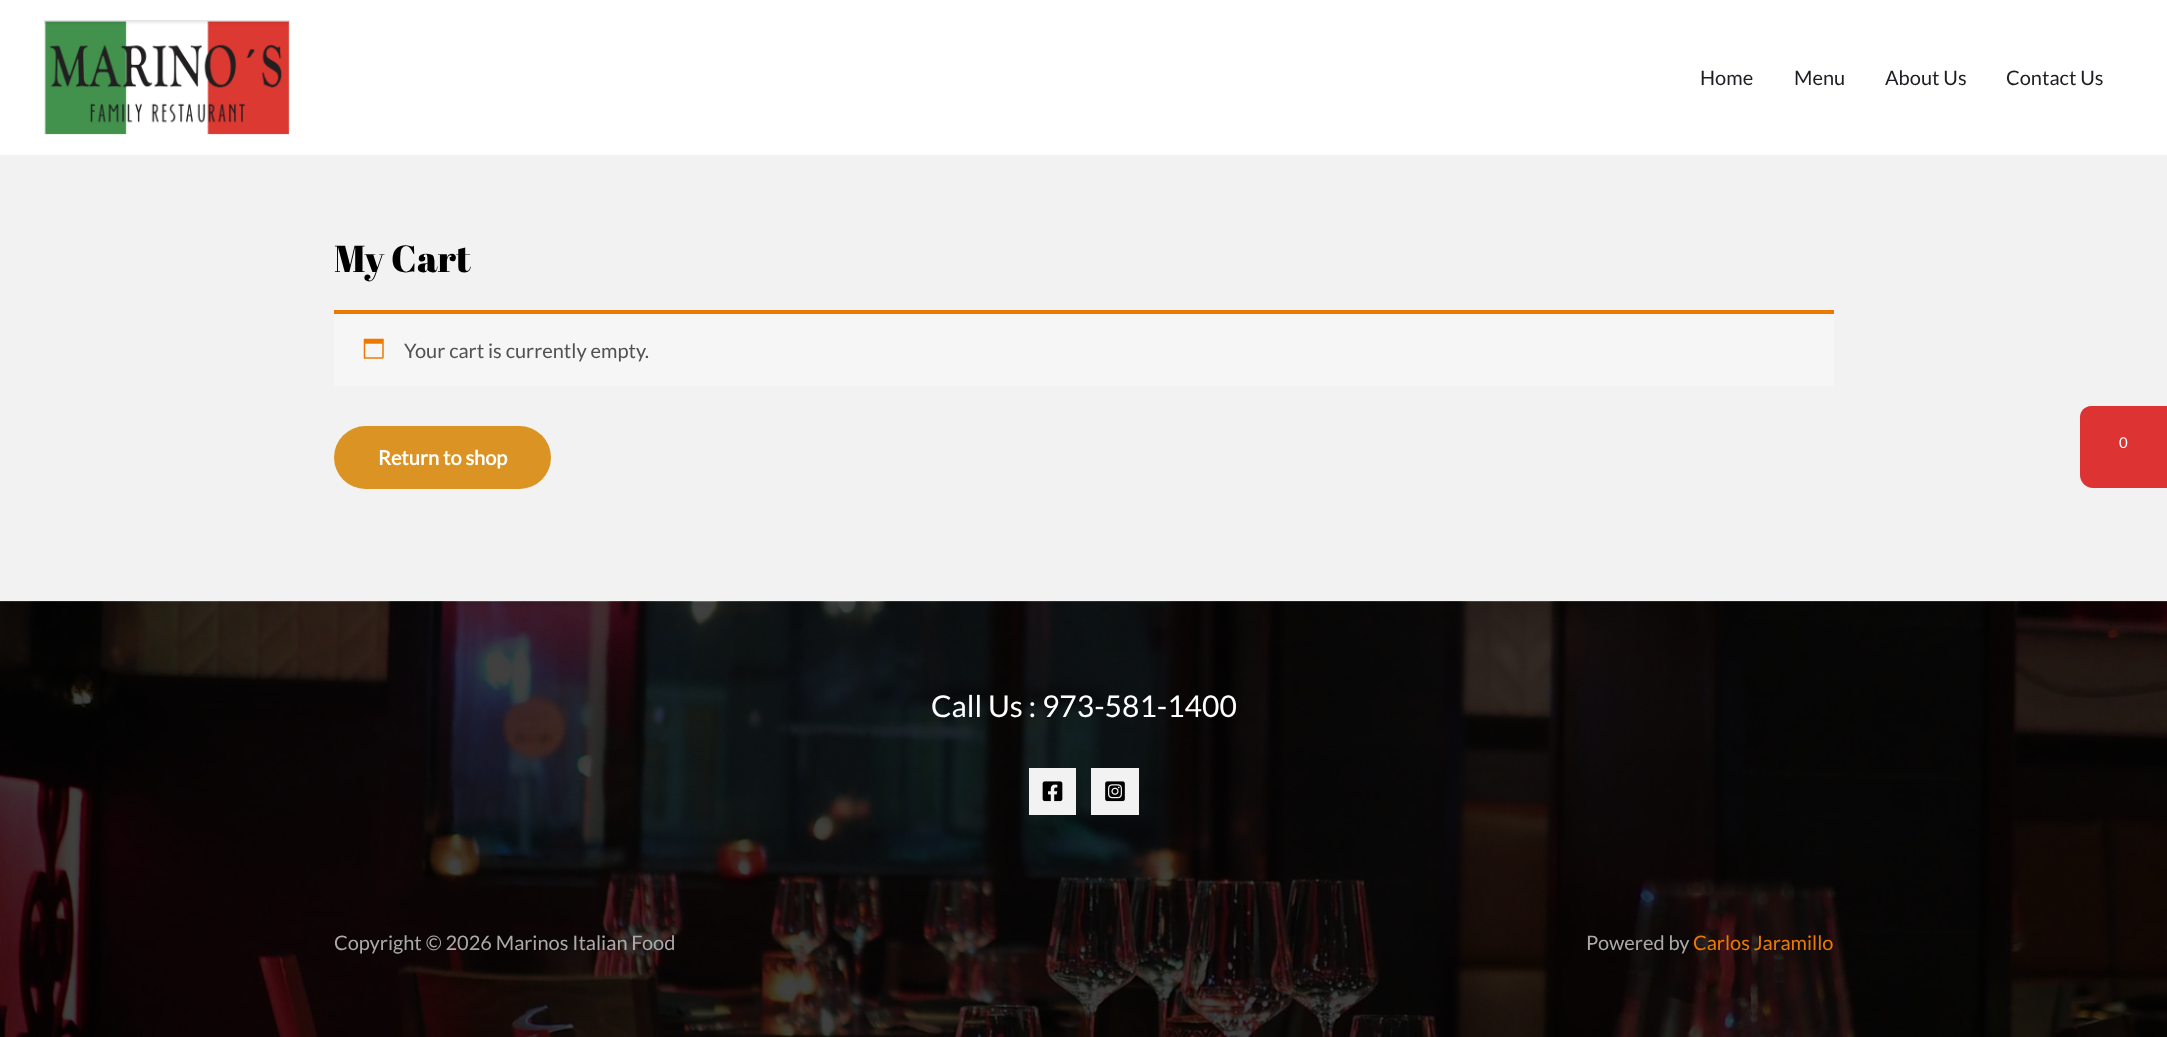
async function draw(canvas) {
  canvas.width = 2167
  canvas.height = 1037
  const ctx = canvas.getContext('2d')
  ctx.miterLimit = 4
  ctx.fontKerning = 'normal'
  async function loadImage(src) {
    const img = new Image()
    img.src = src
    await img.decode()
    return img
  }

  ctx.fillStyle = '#f2f2f2'
  ctx.fillRect(0, 0, 2167, 1037)
  ctx.fillStyle = '#fff'
  ctx.fillRect(0, 0, 2167, 155)
  ctx.drawImage(await loadImage('image0.png'), 43, 20, 247, 115)
  ctx.font = '20px Lato'
  ctx.fillStyle = '#1d1d23'
  ctx.fillText('Home', 1700, 85)
  ctx.fillText('Menu', 1794, 85)
  ctx.fillText('About Us', 1885, 85)
  ctx.fillText('Contact Us', 2006, 85)
  ctx.font = '37.5px Abril Fatface'
  ctx.fillStyle = '#000'
  ctx.fillText('My Cart', 334, 272)
  ctx.fillStyle = '#f7f6f7'
  ctx.fillRect(334, 314, 1500, 72)
  ctx.fillStyle = '#ed7a00'
  ctx.fillRect(334, 310, 1500, 4)
  ctx.drawImage(await loadImage('image1.png'), 363, 338, 21, 21)
  ctx.font = '20px Lato'
  ctx.fillStyle = '#515151'
  ctx.fillText('Your cart is currently empty.', 404, 358)
  ctx.fillStyle = '#db9423'
  ctx.beginPath()
  ctx.roundRect(334, 426, 217, 63, 31.5)
  ctx.fill()
  ctx.font = 'bold 20px Lato'
  ctx.fillStyle = '#fff'
  ctx.fillText('Return to shop', 378, 465)
  ctx.drawImage(await loadImage('image2.png'), 0, 601, 2167, 436)
  ctx.font = '30px Lato'
  ctx.fillText('Call Us : 973-581-1400', 931, 717)
  ctx.fillStyle = '#f2f2f2'
  ctx.fillRect(1029, 768, 47, 47)
  ctx.drawImage(await loadImage('image3.png'), 1042, 781, 21, 21)
  ctx.fillRect(1091, 768, 48, 47)
  ctx.drawImage(await loadImage('image4.png'), 1105, 781, 20, 21)
  ctx.font = '20px Lato'
  ctx.fillStyle = '#aaa'
  ctx.fillText('Copyright © 2026 Marinos Italian Food', 334, 950)
  ctx.fillText('Powered by', 1586, 950)
  ctx.fillStyle = '#ed7a00'
  ctx.fillText('Carlos Jaramillo', 1693, 950)
  ctx.fillStyle = '#d33'
  ctx.beginPath()
  ctx.moveTo(2091, 406)
  ctx.lineTo(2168, 406)
  ctx.lineTo(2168, 488)
  ctx.lineTo(2093, 488)
  ctx.bezierCurveTo(2086, 488, 2080, 482, 2080, 475)
  ctx.lineTo(2080, 417)
  ctx.bezierCurveTo(2080, 411, 2085, 406, 2091, 406)
  ctx.closePath()
  ctx.fill()
  ctx.font = '15px Lato'
  ctx.fillStyle = '#fff'
  ctx.fillText('0', 2119, 448)
}

draw(document.querySelector('canvas'))
